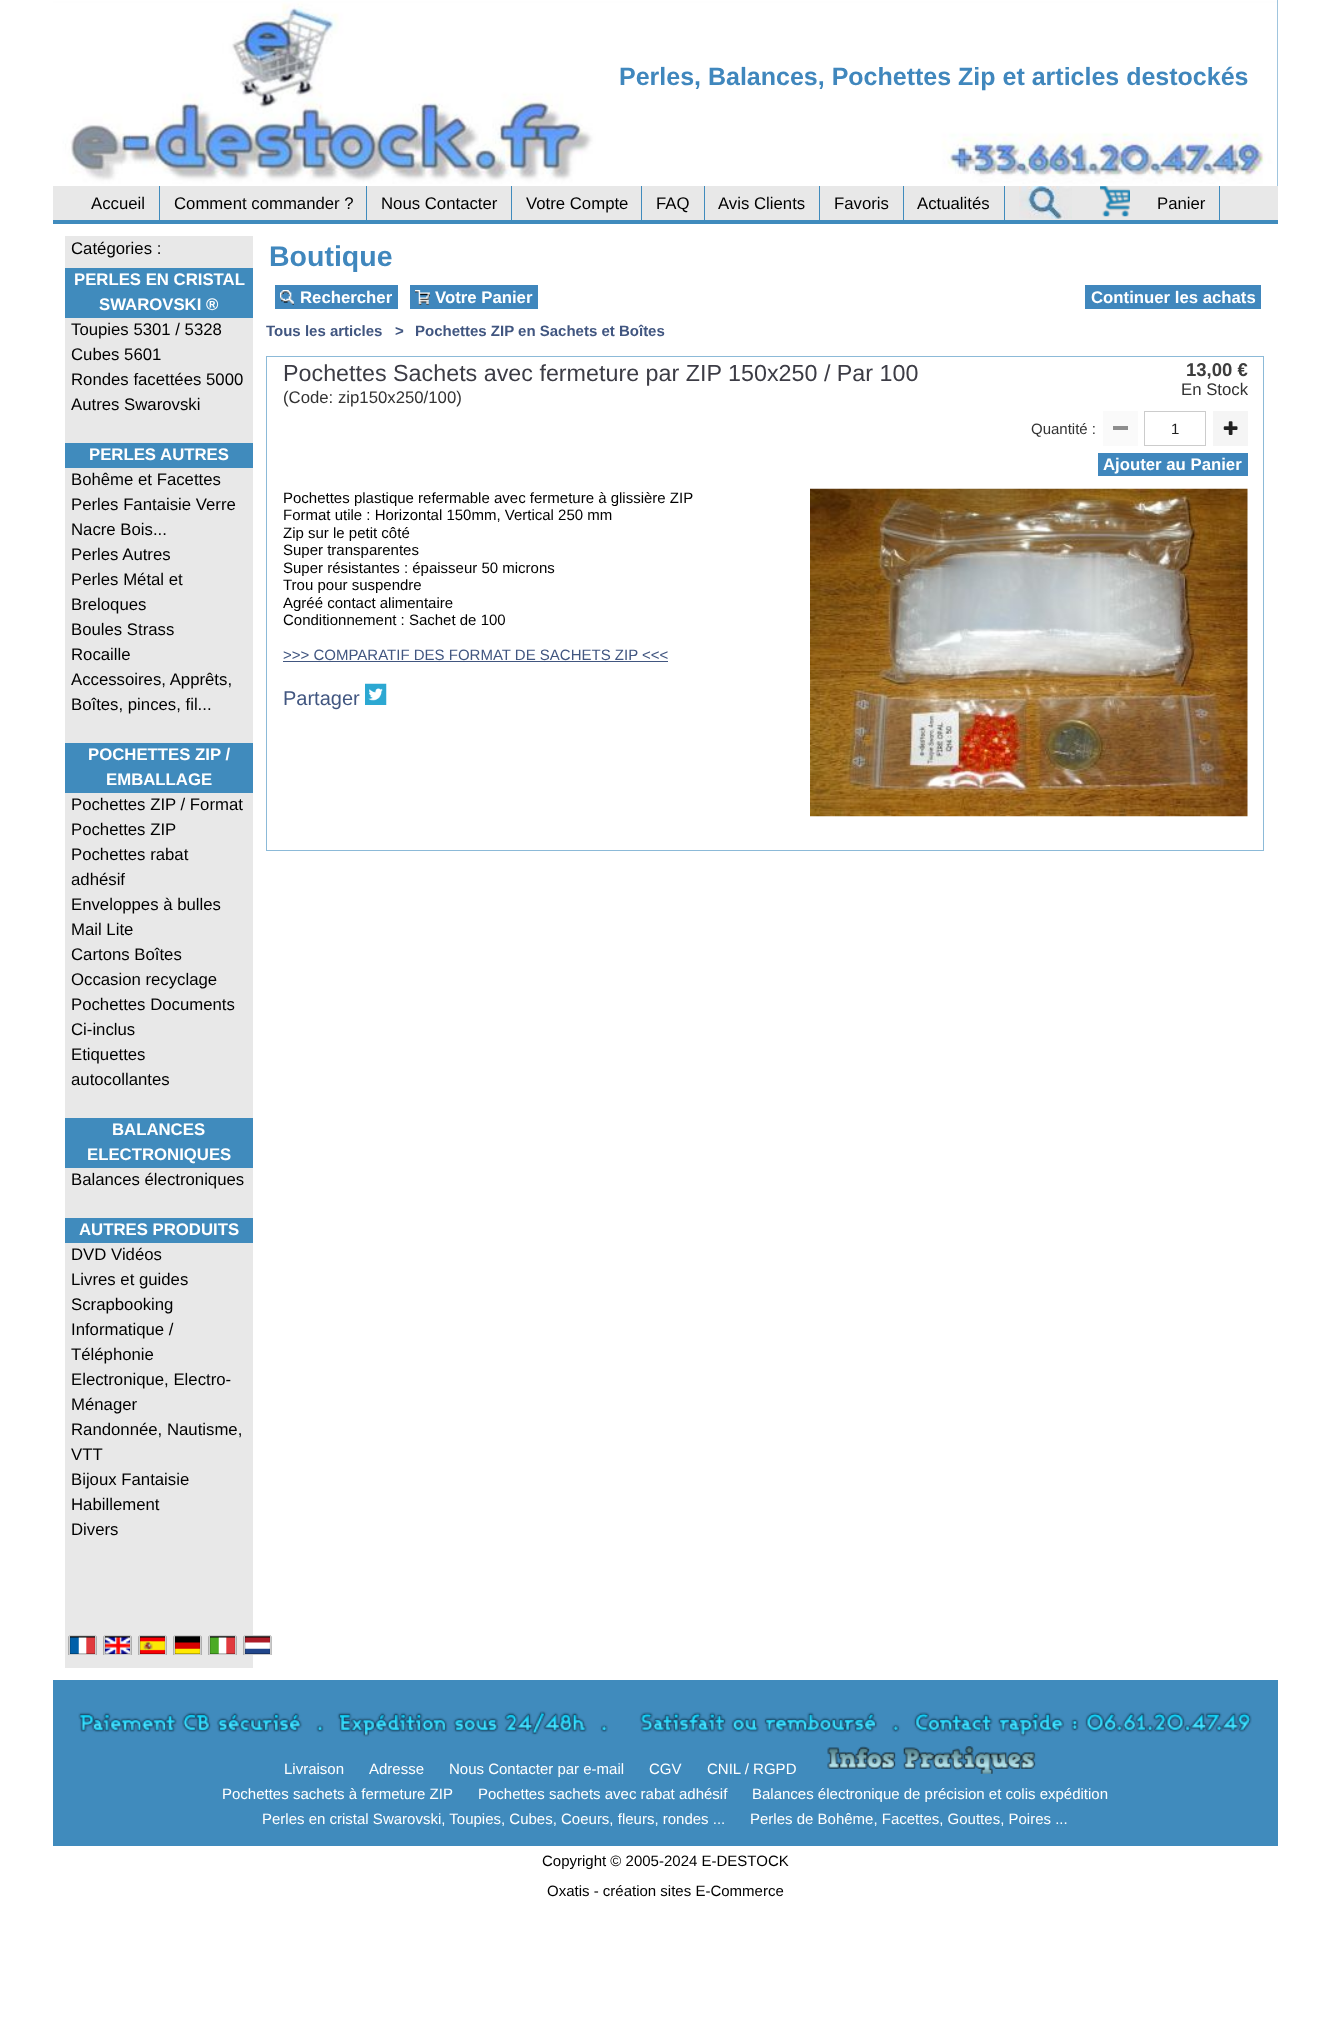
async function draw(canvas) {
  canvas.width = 1329
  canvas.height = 2043
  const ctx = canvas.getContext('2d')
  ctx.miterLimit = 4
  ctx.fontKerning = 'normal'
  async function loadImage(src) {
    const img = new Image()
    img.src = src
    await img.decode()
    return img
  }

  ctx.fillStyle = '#fff'
  ctx.fillRect(0, 0, 1329, 2043)
  ctx.fillStyle = '#408bbd'
  ctx.fillRect(53, 0, 1225, 224)
  ctx.drawImage(await loadImage('image0.png'), 53, 0, 1225, 186)
  ctx.font = 'bold 25px Liberation Sans'
  ctx.fillStyle = '#4087bd'
  ctx.fillText('Perles, Balances, Pochettes Zip et articles destockés', 619, 85)
  ctx.fillStyle = '#e8e8e8'
  ctx.fillRect(53, 186, 1225, 34)
  ctx.fillStyle = '#408bbd'
  ctx.fillRect(159, 186, 1, 34)
  ctx.font = '16.75px Liberation Sans'
  ctx.fillStyle = '#000'
  ctx.fillText('Accueil', 91, 209)
  ctx.fillStyle = '#408bbd'
  ctx.fillRect(366, 186, 1, 34)
  ctx.fillStyle = '#000'
  ctx.fillText('Comment commander ?', 174, 209)
  ctx.fillStyle = '#408bbd'
  ctx.fillRect(511, 186, 1, 34)
  ctx.fillStyle = '#000'
  ctx.fillText('Nous Contacter', 381, 209)
  ctx.fillStyle = '#408bbd'
  ctx.fillRect(641, 186, 1, 34)
  ctx.fillStyle = '#000'
  ctx.fillText('Votre Compte', 526, 209)
  ctx.fillStyle = '#408bbd'
  ctx.fillRect(704, 186, 1, 34)
  ctx.fillStyle = '#000'
  ctx.fillText('FAQ', 656, 209)
  ctx.fillStyle = '#408bbd'
  ctx.fillRect(819, 186, 1, 34)
  ctx.fillStyle = '#000'
  ctx.fillText('Avis Clients', 718, 209)
  ctx.fillStyle = '#408bbd'
  ctx.fillRect(903, 186, 1, 34)
  ctx.fillStyle = '#000'
  ctx.fillText('Favoris', 834, 209)
  ctx.fillStyle = '#408bbd'
  ctx.fillRect(1004, 186, 1, 34)
  ctx.fillStyle = '#000'
  ctx.fillText('Actualités', 917, 209)
  ctx.drawImage(await loadImage('image1.png'), 1019, 186, 53, 33)
  ctx.drawImage(await loadImage('image2.png'), 1100, 186, 30, 31)
  ctx.fillStyle = '#408bbd'
  ctx.fillRect(1219, 186, 1, 34)
  ctx.fillStyle = '#000'
  ctx.fillText('Panier', 1157, 209)
  ctx.fillStyle = '#e8e8e8'
  ctx.fillRect(65, 236, 188, 1432)
  ctx.fillStyle = '#000'
  ctx.fillText('Catégories :', 71, 254)
  ctx.fillStyle = '#408bbd'
  ctx.fillRect(65, 268, 188, 50)
  ctx.font = 'bold 16.75px Liberation Sans'
  ctx.fillStyle = '#fff'
  ctx.fillText('PERLES EN CRISTAL', 74, 285)
  ctx.fillText('SWAROVSKI ®', 99, 310)
  ctx.font = '16.75px Liberation Sans'
  ctx.fillStyle = '#000'
  ctx.fillText('Toupies 5301 / 5328', 71, 335)
  ctx.fillText('Cubes 5601', 71, 360)
  ctx.fillText('Rondes facettées 5000', 71, 385)
  ctx.fillText('Autres Swarovski', 71, 410)
  ctx.fillStyle = '#408bbd'
  ctx.fillRect(65, 443, 188, 25)
  ctx.font = 'bold 16.75px Liberation Sans'
  ctx.fillStyle = '#fff'
  ctx.fillText('PERLES AUTRES', 89, 460)
  ctx.font = '16.75px Liberation Sans'
  ctx.fillStyle = '#000'
  ctx.fillText('Bohême et Facettes', 71, 485)
  ctx.fillText('Perles Fantaisie Verre', 71, 510)
  ctx.fillText('Nacre Bois...', 71, 535)
  ctx.fillText('Perles Autres', 71, 560)
  ctx.fillText('Perles Métal et', 71, 585)
  ctx.fillText('Breloques', 71, 610)
  ctx.fillText('Boules Strass', 71, 635)
  ctx.fillText('Rocaille', 71, 660)
  ctx.fillText('Accessoires, Apprêts,', 71, 685)
  ctx.fillText('Boîtes, pinces, fil...', 71, 710)
  ctx.fillStyle = '#408bbd'
  ctx.fillRect(65, 743, 188, 50)
  ctx.font = 'bold 16.75px Liberation Sans'
  ctx.fillStyle = '#fff'
  ctx.fillText('POCHETTES ZIP /', 88, 760)
  ctx.fillText('EMBALLAGE', 106, 785)
  ctx.font = '16.75px Liberation Sans'
  ctx.fillStyle = '#000'
  ctx.fillText('Pochettes ZIP / Format', 71, 810)
  ctx.fillText('Pochettes ZIP', 71, 835)
  ctx.fillText('Pochettes rabat', 71, 860)
  ctx.fillText('adhésif', 71, 885)
  ctx.fillText('Enveloppes à bulles', 71, 910)
  ctx.fillText('Mail Lite', 71, 935)
  ctx.fillText('Cartons Boîtes', 71, 960)
  ctx.fillText('Occasion recyclage', 71, 985)
  ctx.fillText('Pochettes Documents', 71, 1010)
  ctx.fillText('Ci-inclus', 71, 1035)
  ctx.fillText('Etiquettes', 71, 1060)
  ctx.fillText('autocollantes', 71, 1085)
  ctx.fillStyle = '#408bbd'
  ctx.fillRect(65, 1118, 188, 50)
  ctx.font = 'bold 16.75px Liberation Sans'
  ctx.fillStyle = '#fff'
  ctx.fillText('BALANCES', 112, 1135)
  ctx.fillText('ELECTRONIQUES', 87, 1160)
  ctx.font = '16.75px Liberation Sans'
  ctx.fillStyle = '#000'
  ctx.fillText('Balances électroniques', 71, 1185)
  ctx.fillStyle = '#408bbd'
  ctx.fillRect(65, 1218, 188, 25)
  ctx.font = 'bold 16.75px Liberation Sans'
  ctx.fillStyle = '#fff'
  ctx.fillText('AUTRES PRODUITS', 79, 1235)
  ctx.font = '16.75px Liberation Sans'
  ctx.fillStyle = '#000'
  ctx.fillText('DVD Vidéos', 71, 1260)
  ctx.fillText('Livres et guides', 71, 1285)
  ctx.fillText('Scrapbooking', 71, 1310)
  ctx.fillText('Informatique /', 71, 1335)
  ctx.fillText('Téléphonie', 71, 1360)
  ctx.fillText('Electronique, Electro-', 71, 1385)
  ctx.fillText('Ménager', 71, 1410)
  ctx.fillText('Randonnée, Nautisme,', 71, 1435)
  ctx.fillText('VTT', 71, 1460)
  ctx.fillText('Bijoux Fantaisie', 71, 1485)
  ctx.fillText('Habillement', 71, 1510)
  ctx.fillText('Divers', 71, 1535)
  ctx.drawImage(await loadImage('image3.png'), 68, 1636, 29, 19)
  ctx.strokeStyle = '#ccc'
  ctx.strokeRect(69.5, 1635.5, 26, 19)
  ctx.drawImage(await loadImage('image4.png'), 103, 1636, 29, 19)
  ctx.strokeRect(104.5, 1635.5, 26, 19)
  ctx.drawImage(await loadImage('image5.png'), 138, 1636, 29, 19)
  ctx.strokeRect(139.5, 1635.5, 26, 19)
  ctx.drawImage(await loadImage('image6.png'), 173, 1636, 29, 19)
  ctx.strokeRect(174.5, 1635.5, 26, 19)
  ctx.drawImage(await loadImage('image7.png'), 208, 1636, 29, 19)
  ctx.strokeRect(209.5, 1635.5, 26, 19)
  ctx.drawImage(await loadImage('image8.png'), 243, 1636, 29, 19)
  ctx.strokeRect(244.5, 1635.5, 26, 19)
  ctx.font = 'bold 28.5px Liberation Sans'
  ctx.fillStyle = '#4087bd'
  ctx.fillText('Boutique', 269, 266)
  ctx.fillRect(275, 285, 123, 24)
  ctx.drawImage(await loadImage('image9.png'), 280, 290, 14, 15)
  ctx.font = 'bold 16.75px Liberation Sans'
  ctx.fillStyle = '#fff'
  ctx.fillText('Rechercher', 300, 303)
  ctx.fillStyle = '#4087bd'
  ctx.fillRect(410, 285, 128, 24)
  ctx.drawImage(await loadImage('image10.png'), 415, 290, 15, 15)
  ctx.fillStyle = '#fff'
  ctx.fillText('Votre Panier', 435, 303)
  ctx.fillStyle = '#4087bd'
  ctx.fillRect(1085, 285, 176, 24)
  ctx.fillStyle = '#fff'
  ctx.fillText('Continuer les achats', 1091, 303)
  ctx.font = 'bold 15px Liberation Sans'
  ctx.fillStyle = '#415680'
  ctx.fillText('Tous les articles', 266, 336)
  ctx.fillText('>', 395, 336)
  ctx.fillText('Pochettes ZIP en Sachets et Boîtes', 415, 336)
  ctx.strokeStyle = '#8cbad8'
  ctx.strokeRect(266.5, 356.5, 997, 494)
  ctx.font = '23.3px Liberation Sans'
  ctx.fillStyle = '#3c3c45'
  ctx.fillText('Pochettes Sachets avec fermeture par ZIP 150x250 / Par 100', 283, 381)
  ctx.font = '16.75px Liberation Sans'
  ctx.fillStyle = '#333'
  ctx.fillText('(Code: zip150x250/100)', 283, 403)
  ctx.font = 'bold 18.5px Liberation Sans'
  ctx.fillStyle = '#3d3d3d'
  ctx.fillText('13,00 €', 1186, 376)
  ctx.font = '16.75px Liberation Sans'
  ctx.fillStyle = '#333'
  ctx.fillText('En Stock', 1181, 395)
  ctx.font = '15px Liberation Sans'
  ctx.fillText('Quantité :', 1031, 434)
  ctx.fillStyle = '#fafafa'
  ctx.fillRect(1103, 411, 35, 35)
  ctx.fillStyle = '#8e8e8e'
  ctx.fillRect(1113, 426, 15, 4)
  ctx.strokeStyle = '#ccc'
  ctx.strokeRect(1144.5, 411.5, 61, 34)
  ctx.fillStyle = '#212121'
  ctx.fillText('1', 1171, 434)
  ctx.fillStyle = '#f5f5f5'
  ctx.fillRect(1213, 411, 35, 35)
  ctx.drawImage(await loadImage('image11.png'), 1223, 421, 15, 14)
  ctx.fillStyle = '#4087bd'
  ctx.fillRect(1098, 453, 150, 23)
  ctx.font = 'bold 16.75px Liberation Sans'
  ctx.fillStyle = '#fff'
  ctx.fillText('Ajouter au Panier', 1103, 470)
  ctx.font = '15px Liberation Sans'
  ctx.fillStyle = '#000'
  ctx.fillText('Pochettes plastique refermable avec fermeture à glissière ZIP', 283, 503)
  ctx.drawImage(await loadImage('image12.png'), 810, 488, 438, 329)
  ctx.fillText('Format utile : Horizontal 150mm, Vertical 250 mm', 283, 520)
  ctx.fillText('Zip sur le petit côté', 283, 538)
  ctx.fillText('Super transparentes', 283, 555)
  ctx.fillText('Super résistantes : épaisseur 50 microns', 283, 573)
  ctx.fillText('Trou pour suspendre', 283, 590)
  ctx.fillText('Agréé contact alimentaire', 283, 608)
  ctx.fillText('Conditionnement : Sachet de 100', 283, 625)
  ctx.fillStyle = '#415680'
  ctx.fillText('>>> COMPARATIF DES FORMAT DE SACHETS ZIP <<<', 283, 660)
  ctx.fillRect(283, 661, 385, 1)
  ctx.font = '20px Liberation Sans'
  ctx.fillText('Partager', 283, 705)
  ctx.drawImage(await loadImage('image13.png'), 365, 683, 22, 22)
  ctx.fillStyle = '#408bbd'
  ctx.fillRect(53, 1680, 1225, 166)
  ctx.drawImage(await loadImage('image14.png'), 78, 1711, 530, 26)
  ctx.drawImage(await loadImage('image15.png'), 639, 1712, 613, 25)
  ctx.font = '15px Liberation Sans'
  ctx.fillStyle = '#fff'
  ctx.fillText('Livraison', 284, 1774)
  ctx.fillText('Adresse', 369, 1774)
  ctx.fillText('Nous Contacter par e-mail', 449, 1774)
  ctx.fillText('CGV', 649, 1774)
  ctx.fillText('CNIL / RGPD', 707, 1774)
  ctx.drawImage(await loadImage('image16.png'), 827, 1746, 209, 28)
  ctx.fillText('Pochettes sachets à fermeture ZIP', 222, 1799)
  ctx.fillText('Pochettes sachets avec rabat adhésif', 478, 1799)
  ctx.fillText('Balances électronique de précision et colis expédition', 752, 1799)
  ctx.fillText('Perles en cristal Swarovski, Toupies, Cubes, Coeurs, fleurs, rondes ...', 262, 1824)
  ctx.fillText('Perles de Bohême, Facettes, Gouttes, Poires ...', 750, 1824)
  ctx.fillStyle = '#000'
  ctx.fillText('Copyright © 2005-2024 E-DESTOCK', 542, 1866)
  ctx.fillText('Oxatis - création sites E-Commerce', 547, 1896)
}

draw(document.querySelector('canvas'))
